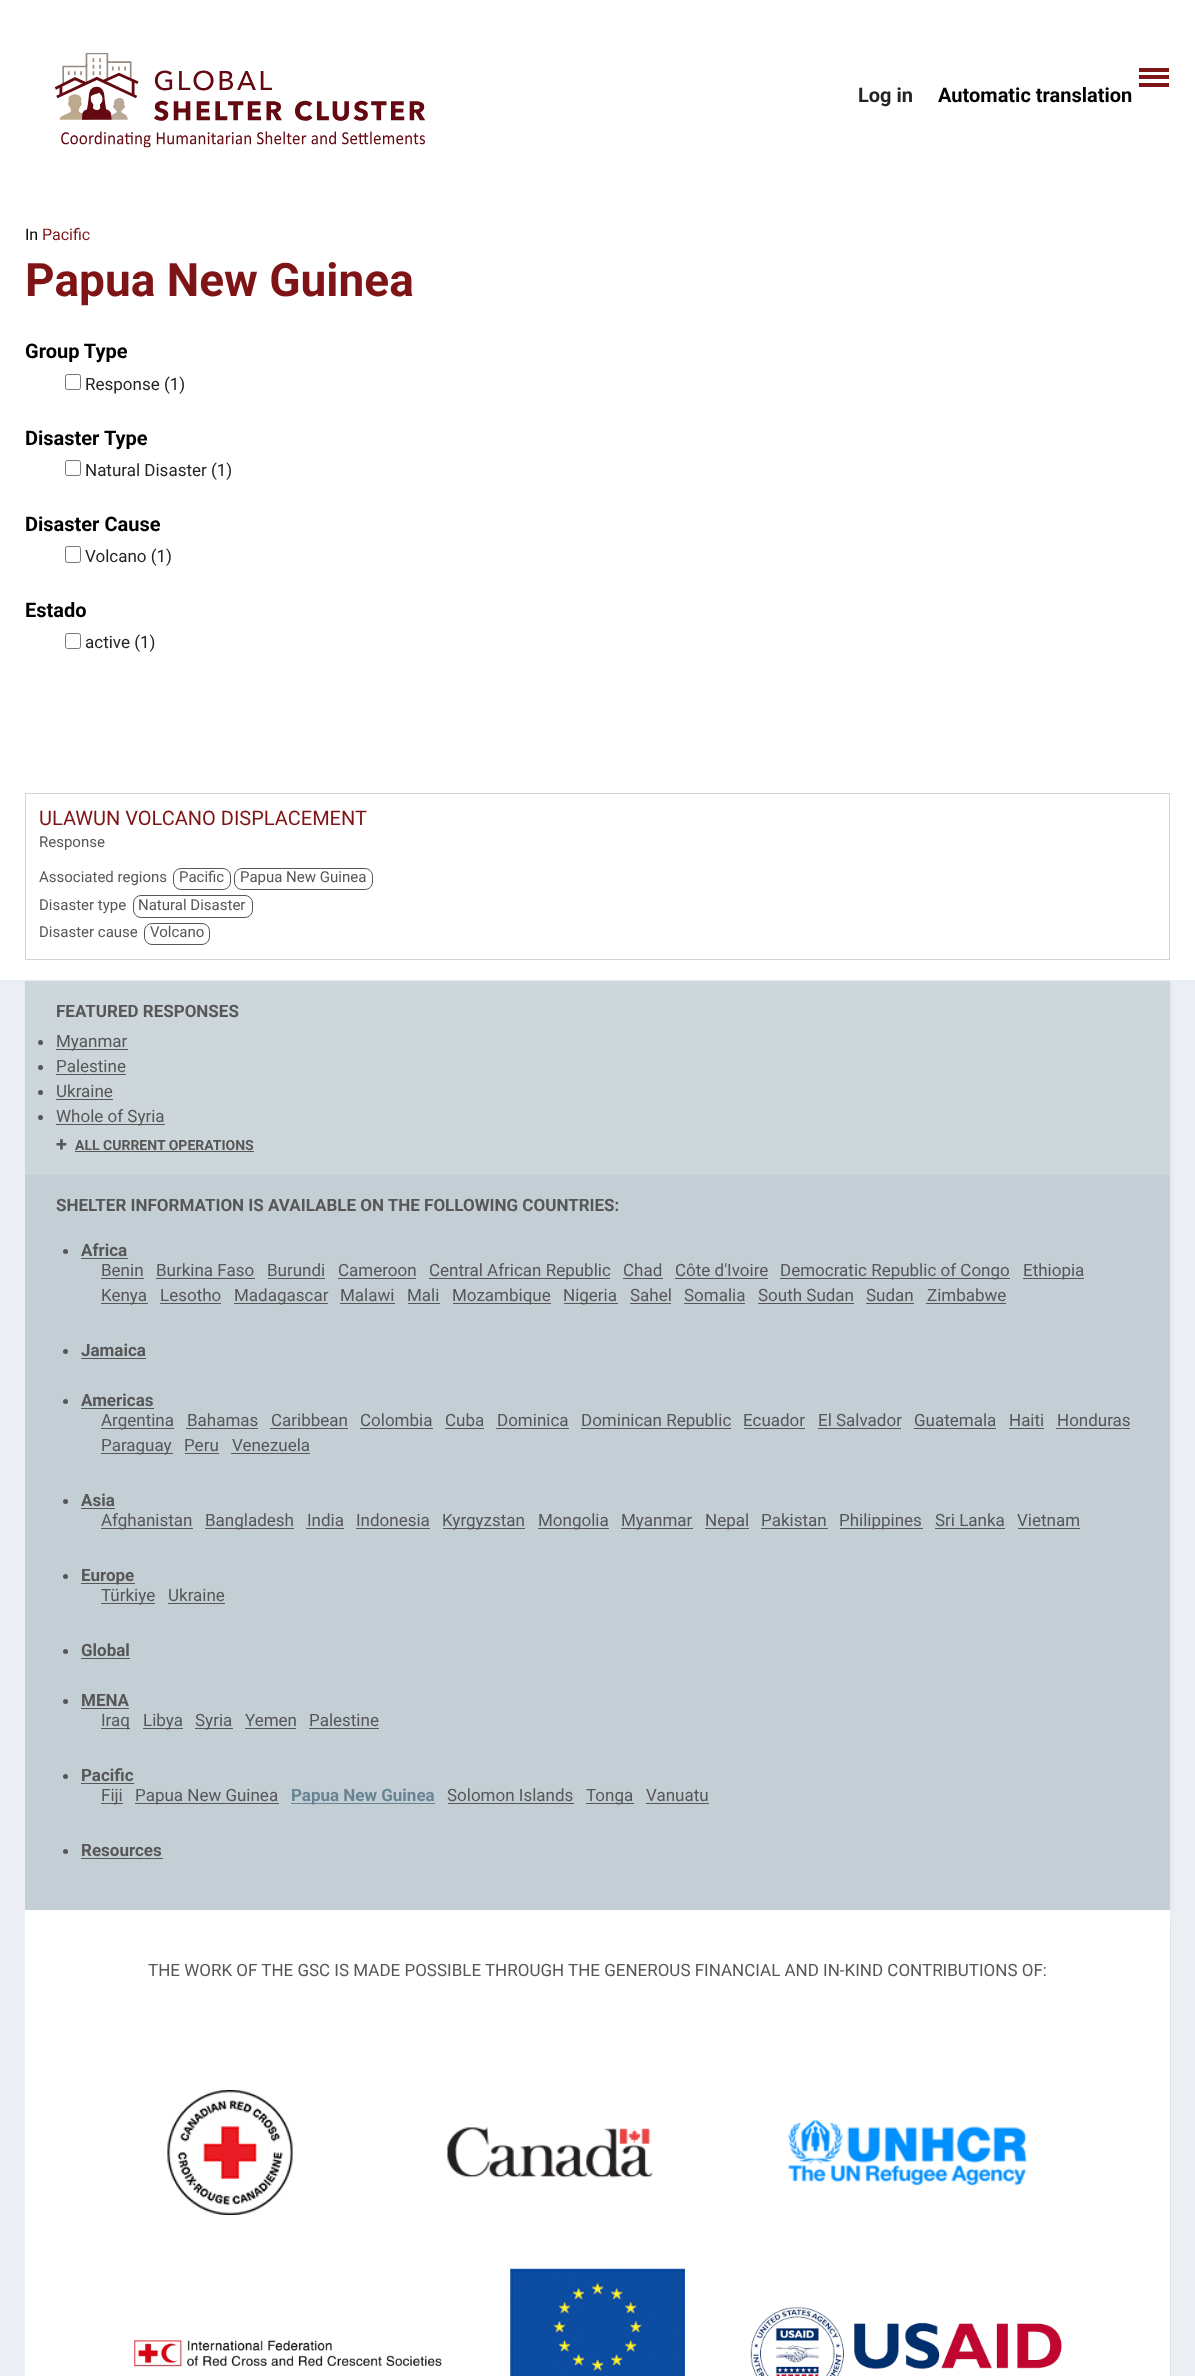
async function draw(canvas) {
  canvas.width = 1195
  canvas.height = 2376
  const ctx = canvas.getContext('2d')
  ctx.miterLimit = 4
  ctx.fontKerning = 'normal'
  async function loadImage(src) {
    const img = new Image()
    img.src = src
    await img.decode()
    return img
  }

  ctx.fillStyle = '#fff'
  ctx.fillRect(0, 0, 1195, 2376)
  ctx.fillStyle = '#7f1416'
  ctx.fillRect(1139, 75, 30, 4)
  ctx.fillRect(1139, 68, 30, 4)
  ctx.fillRect(1139, 83, 30, 4)
  ctx.drawImage(await loadImage('image0.png'), 54, 53, 372, 95)
  ctx.font = 'bold 20px Roboto'
  ctx.fillStyle = '#242424'
  ctx.fillText('Log in', 858, 102)
  ctx.fillStyle = '#000'
  ctx.fillText('Automatic translation', 938, 102)
  ctx.font = '16px Roboto'
  ctx.fillText('In', 25, 240)
  ctx.fillStyle = '#7f1416'
  ctx.fillText('Pacific', 42, 240)
  ctx.font = 'bold 46px Roboto'
  ctx.fillText('Papua New Guinea', 25, 296)
  ctx.font = 'bold 20px Roboto'
  ctx.fillStyle = '#000'
  ctx.fillText('Group Type', 25, 358)
  ctx.beginPath()
  ctx.roundRect(65.5, 374.5, 15, 15, 2)
  ctx.strokeStyle = '#767676'
  ctx.stroke()
  ctx.font = '17px Roboto'
  ctx.fillStyle = '#242424'
  ctx.fillText('Response (1)', 85, 390)
  ctx.font = 'bold 20px Roboto'
  ctx.fillStyle = '#000'
  ctx.fillText('Disaster Type', 25, 445)
  ctx.beginPath()
  ctx.roundRect(65.5, 460.5, 15, 15, 2)
  ctx.stroke()
  ctx.font = '17px Roboto'
  ctx.fillStyle = '#242424'
  ctx.fillText('Natural Disaster (1)', 85, 476)
  ctx.font = 'bold 20px Roboto'
  ctx.fillStyle = '#000'
  ctx.fillText('Disaster Cause', 25, 531)
  ctx.beginPath()
  ctx.roundRect(65.5, 546.5, 15, 16, 2)
  ctx.stroke()
  ctx.font = '17px Roboto'
  ctx.fillStyle = '#242424'
  ctx.fillText('Volcano (1)', 85, 562)
  ctx.font = 'bold 20px Roboto'
  ctx.fillStyle = '#000'
  ctx.fillText('Estado', 25, 617)
  ctx.beginPath()
  ctx.roundRect(65.5, 633.5, 15, 15, 2)
  ctx.stroke()
  ctx.font = '17px Roboto'
  ctx.fillStyle = '#242424'
  ctx.fillText('active (1)', 85, 648)
  ctx.strokeStyle = '#cdd6db'
  ctx.strokeRect(25.5, 793.5, 1144, 166)
  ctx.font = '20px Roboto'
  ctx.fillStyle = '#7f1416'
  ctx.fillText('ULAWUN VOLCANO DISPLACEMENT', 39, 825)
  ctx.font = '15px Roboto'
  ctx.fillStyle = '#575757'
  ctx.fillText('Response', 39, 847)
  ctx.fillText('Associated regions', 39, 882)
  ctx.beginPath()
  ctx.roundRect(173.5, 868.5, 57, 21, 7.5)
  ctx.strokeStyle = '#575757'
  ctx.stroke()
  ctx.fillText('Pacific', 179, 882)
  ctx.beginPath()
  ctx.roundRect(234.5, 868.5, 138, 21, 7.5)
  ctx.stroke()
  ctx.fillText('Papua New Guinea', 240, 882)
  ctx.fillText('Disaster type', 39, 910)
  ctx.beginPath()
  ctx.roundRect(133.5, 895.5, 119, 22, 7.5)
  ctx.stroke()
  ctx.fillText('Natural Disaster', 138, 910)
  ctx.fillText('Disaster cause', 39, 937)
  ctx.beginPath()
  ctx.roundRect(144.5, 923.5, 65, 21, 7.5)
  ctx.stroke()
  ctx.fillText('Volcano', 150, 937)
  ctx.fillStyle = '#ebeff3'
  ctx.fillRect(0, 980, 1195, 1396)
  ctx.fillStyle = '#0000000d'
  ctx.filter = 'blur(3px)'
  ctx.beginPath()
  ctx.rect(29, 983, 1142, 926)
  ctx.fill()
  ctx.filter = 'none'
  ctx.fillStyle = '#cdd6db'
  ctx.fillRect(25, 981, 1145, 194)
  ctx.font = 'bold 17px Roboto'
  ctx.fillStyle = '#575757'
  ctx.fillText('FEATURED RESPONSES', 56, 1017)
  ctx.beginPath()
  ctx.arc(40.5, 1042.5, 2.5, 0, 2 * Math.PI)
  ctx.fill()
  ctx.font = '17px Roboto'
  ctx.fillText('Myanmar', 56, 1047)
  ctx.fillRect(56, 1049, 72, 1)
  ctx.beginPath()
  ctx.arc(40.5, 1067.5, 2.5, 0, 2 * Math.PI)
  ctx.fill()
  ctx.fillText('Palestine', 56, 1072)
  ctx.fillRect(56, 1074, 70, 1)
  ctx.beginPath()
  ctx.arc(40.5, 1092.5, 2.5, 0, 2 * Math.PI)
  ctx.fill()
  ctx.fillText('Ukraine', 56, 1097)
  ctx.fillRect(56, 1099, 57, 1)
  ctx.beginPath()
  ctx.arc(40.5, 1117.5, 2.5, 0, 2 * Math.PI)
  ctx.fill()
  ctx.fillText('Whole of Syria', 56, 1122)
  ctx.fillRect(56, 1124, 109, 1)
  ctx.font = 'bold 20px Roboto'
  ctx.fillText('+', 56, 1151)
  ctx.font = 'bold 14px Roboto'
  ctx.fillText('ALL CURRENT OPERATIONS', 75, 1150)
  ctx.fillRect(75, 1151, 179, 1)
  ctx.fillStyle = '#c4cfd5'
  ctx.fillRect(25, 1175, 1145, 735)
  ctx.font = 'bold 17px Roboto'
  ctx.fillStyle = '#575757'
  ctx.fillText('SHELTER INFORMATION IS AVAILABLE ON THE FOLLOWING COUNTRIES:', 56, 1211)
  ctx.beginPath()
  ctx.arc(65.5, 1251.5, 2.5, 0, 2 * Math.PI)
  ctx.fill()
  ctx.fillText('Africa', 81, 1256)
  ctx.fillRect(81, 1258, 47, 1)
  ctx.font = '17px Roboto'
  ctx.fillText('Benin', 101, 1276)
  ctx.fillRect(101, 1278, 43, 1)
  ctx.fillText('Burkina Faso', 156, 1276)
  ctx.fillRect(156, 1278, 99, 1)
  ctx.fillText('Burundi', 267, 1276)
  ctx.fillRect(268, 1278, 57, 1)
  ctx.fillText('Cameroon', 338, 1276)
  ctx.fillRect(338, 1278, 78, 1)
  ctx.fillText('Central African Republic', 429, 1276)
  ctx.fillRect(429, 1278, 181, 1)
  ctx.fillText('Chad', 623, 1276)
  ctx.fillRect(623, 1278, 40, 1)
  ctx.fillText('Côte d\'Ivoire', 675, 1276)
  ctx.fillRect(675, 1278, 93, 1)
  ctx.fillText('Democratic Republic of Congo', 780, 1276)
  ctx.fillRect(780, 1278, 230, 1)
  ctx.fillText('Ethiopia', 1023, 1276)
  ctx.fillRect(1023, 1278, 61, 1)
  ctx.fillText('Kenya', 101, 1301)
  ctx.fillRect(101, 1303, 47, 1)
  ctx.fillText('Lesotho', 160, 1301)
  ctx.fillRect(160, 1303, 61, 1)
  ctx.fillText('Madagascar', 234, 1301)
  ctx.fillRect(234, 1303, 94, 1)
  ctx.fillText('Malawi', 340, 1301)
  ctx.fillRect(340, 1303, 55, 1)
  ctx.fillText('Mali', 407, 1301)
  ctx.fillRect(408, 1303, 32, 1)
  ctx.fillText('Mozambique', 452, 1301)
  ctx.fillRect(453, 1303, 98, 1)
  ctx.fillText('Nigeria', 563, 1301)
  ctx.fillRect(564, 1303, 54, 1)
  ctx.fillText('Sahel', 630, 1301)
  ctx.fillRect(630, 1303, 41, 1)
  ctx.fillText('Somalia', 684, 1301)
  ctx.fillRect(684, 1303, 61, 1)
  ctx.fillText('South Sudan', 758, 1301)
  ctx.fillRect(758, 1303, 96, 1)
  ctx.fillText('Sudan', 866, 1301)
  ctx.fillRect(866, 1303, 48, 1)
  ctx.fillText('Zimbabwe', 927, 1301)
  ctx.fillRect(926, 1303, 80, 1)
  ctx.beginPath()
  ctx.arc(65.5, 1351.5, 2.5, 0, 2 * Math.PI)
  ctx.fill()
  ctx.font = 'bold 17px Roboto'
  ctx.fillText('Jamaica', 81, 1356)
  ctx.fillRect(81, 1358, 65, 1)
  ctx.beginPath()
  ctx.arc(65.5, 1401.5, 2.5, 0, 2 * Math.PI)
  ctx.fill()
  ctx.fillText('Americas', 81, 1406)
  ctx.fillRect(81, 1408, 73, 1)
  ctx.font = '17px Roboto'
  ctx.fillText('Argentina', 101, 1426)
  ctx.fillRect(101, 1428, 73, 1)
  ctx.fillText('Bahamas', 187, 1426)
  ctx.fillRect(186, 1428, 72, 1)
  ctx.fillText('Caribbean', 271, 1426)
  ctx.fillRect(270, 1428, 78, 1)
  ctx.fillText('Colombia', 360, 1426)
  ctx.fillRect(360, 1428, 73, 1)
  ctx.fillText('Cuba', 445, 1426)
  ctx.fillRect(445, 1428, 39, 1)
  ctx.fillText('Dominica', 497, 1426)
  ctx.fillRect(496, 1428, 73, 1)
  ctx.fillText('Dominican Republic', 581, 1426)
  ctx.fillRect(581, 1428, 150, 1)
  ctx.fillText('Ecuador', 743, 1426)
  ctx.fillRect(744, 1428, 61, 1)
  ctx.fillText('El Salvador', 818, 1426)
  ctx.fillRect(818, 1428, 83, 1)
  ctx.fillText('Guatemala', 914, 1426)
  ctx.fillRect(914, 1428, 82, 1)
  ctx.fillText('Haiti', 1009, 1426)
  ctx.fillRect(1009, 1428, 35, 1)
  ctx.fillText('Honduras', 1057, 1426)
  ctx.fillRect(1056, 1428, 74, 1)
  ctx.fillText('Paraguay', 101, 1451)
  ctx.fillRect(101, 1453, 72, 1)
  ctx.fillText('Peru', 184, 1451)
  ctx.fillRect(185, 1453, 34, 1)
  ctx.fillText('Venezuela', 232, 1451)
  ctx.fillRect(231, 1453, 79, 1)
  ctx.beginPath()
  ctx.arc(65.5, 1501.5, 2.5, 0, 2 * Math.PI)
  ctx.fill()
  ctx.font = 'bold 17px Roboto'
  ctx.fillText('Asia', 81, 1506)
  ctx.fillRect(81, 1508, 34, 1)
  ctx.font = '17px Roboto'
  ctx.fillText('Afghanistan', 101, 1526)
  ctx.fillRect(101, 1528, 92, 1)
  ctx.fillText('Bangladesh', 205, 1526)
  ctx.fillRect(205, 1528, 89, 1)
  ctx.fillText('India', 307, 1526)
  ctx.fillRect(306, 1528, 38, 1)
  ctx.fillText('Indonesia', 356, 1526)
  ctx.fillRect(356, 1528, 74, 1)
  ctx.fillText('Kyrgyzstan', 442, 1526)
  ctx.fillRect(443, 1528, 82, 1)
  ctx.fillText('Mongolia', 538, 1526)
  ctx.fillRect(538, 1528, 71, 1)
  ctx.fillText('Myanmar', 621, 1526)
  ctx.fillRect(621, 1528, 72, 1)
  ctx.fillText('Nepal', 705, 1526)
  ctx.fillRect(705, 1528, 44, 1)
  ctx.fillText('Pakistan', 761, 1526)
  ctx.fillRect(761, 1528, 67, 1)
  ctx.fillText('Philippines', 839, 1526)
  ctx.fillRect(840, 1528, 83, 1)
  ctx.fillText('Sri Lanka', 935, 1526)
  ctx.fillRect(935, 1528, 70, 1)
  ctx.fillText('Vietnam', 1017, 1526)
  ctx.fillRect(1018, 1528, 62, 1)
  ctx.beginPath()
  ctx.arc(65.5, 1576.5, 2.5, 0, 2 * Math.PI)
  ctx.fill()
  ctx.font = 'bold 17px Roboto'
  ctx.fillText('Europe', 81, 1581)
  ctx.fillRect(81, 1583, 54, 1)
  ctx.font = '17px Roboto'
  ctx.fillText('Türkiye', 101, 1601)
  ctx.fillRect(101, 1603, 54, 1)
  ctx.fillText('Ukraine', 168, 1601)
  ctx.fillRect(168, 1603, 57, 1)
  ctx.beginPath()
  ctx.arc(65.5, 1651.5, 2.5, 0, 2 * Math.PI)
  ctx.fill()
  ctx.font = 'bold 17px Roboto'
  ctx.fillText('Global', 81, 1656)
  ctx.fillRect(81, 1658, 49, 1)
  ctx.beginPath()
  ctx.arc(65.5, 1701.5, 2.5, 0, 2 * Math.PI)
  ctx.fill()
  ctx.fillText('MENA', 81, 1706)
  ctx.fillRect(81, 1708, 48, 1)
  ctx.font = '17px Roboto'
  ctx.fillText('Iraq', 101, 1726)
  ctx.fillRect(101, 1728, 29, 1)
  ctx.fillText('Libya', 143, 1726)
  ctx.fillRect(143, 1728, 40, 1)
  ctx.fillText('Syria', 195, 1726)
  ctx.fillRect(195, 1728, 38, 1)
  ctx.fillText('Yemen', 245, 1726)
  ctx.fillRect(245, 1728, 51, 1)
  ctx.fillText('Palestine', 309, 1726)
  ctx.fillRect(309, 1728, 70, 1)
  ctx.beginPath()
  ctx.arc(65.5, 1776.5, 2.5, 0, 2 * Math.PI)
  ctx.fill()
  ctx.font = 'bold 17px Roboto'
  ctx.fillText('Pacific', 81, 1781)
  ctx.fillRect(81, 1783, 53, 1)
  ctx.font = '17px Roboto'
  ctx.fillText('Fiji', 101, 1801)
  ctx.fillRect(101, 1803, 22, 1)
  ctx.fillText('Papua New Guinea', 135, 1801)
  ctx.fillRect(135, 1803, 144, 1)
  ctx.font = 'bold 17px Roboto'
  ctx.fillStyle = '#688394'
  ctx.fillText('Papua New Guinea', 291, 1801)
  ctx.fillRect(291, 1803, 144, 1)
  ctx.font = '17px Roboto'
  ctx.fillStyle = '#575757'
  ctx.fillText('Solomon Islands', 447, 1801)
  ctx.fillRect(448, 1803, 126, 1)
  ctx.fillText('Tonga', 586, 1801)
  ctx.fillRect(586, 1803, 48, 1)
  ctx.fillText('Vanuatu', 646, 1801)
  ctx.fillRect(646, 1803, 63, 1)
  ctx.beginPath()
  ctx.arc(65.5, 1851.5, 2.5, 0, 2 * Math.PI)
  ctx.fill()
  ctx.font = 'bold 17px Roboto'
  ctx.fillText('Resources', 81, 1856)
  ctx.fillRect(81, 1858, 82, 1)
  ctx.fillStyle = '#0000000d'
  ctx.filter = 'blur(0.5px)'
  ctx.beginPath()
  ctx.roundRect(29, 1914, 1142, 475, 11)
  ctx.fill()
  ctx.filter = 'none'
  ctx.fillStyle = '#fff'
  ctx.fillRect(25, 1910, 1145, 466)
  ctx.font = '17px Roboto'
  ctx.fillStyle = '#575757'
  ctx.fillText('THE WORK OF THE GSC IS MADE POSSIBLE THROUGH THE GENEROUS FINANCIAL AND IN-KIND CONTRIBUTIONS OF:', 148, 1976)
  ctx.drawImage(await loadImage('image1.png'), 167, 2090, 126, 125)
  ctx.drawImage(await loadImage('image2.png'), 447, 2127, 206, 51)
  ctx.drawImage(await loadImage('image3.png'), 787, 2119, 240, 67)
  ctx.drawImage(await loadImage('image4.png'), 134, 2340, 308, 27)
  ctx.drawImage(await loadImage('image5.png'), 510, 2268, 175, 108)
  ctx.drawImage(await loadImage('image6.png'), 750, 2307, 312, 69)
}

draw(document.querySelector('canvas'))
